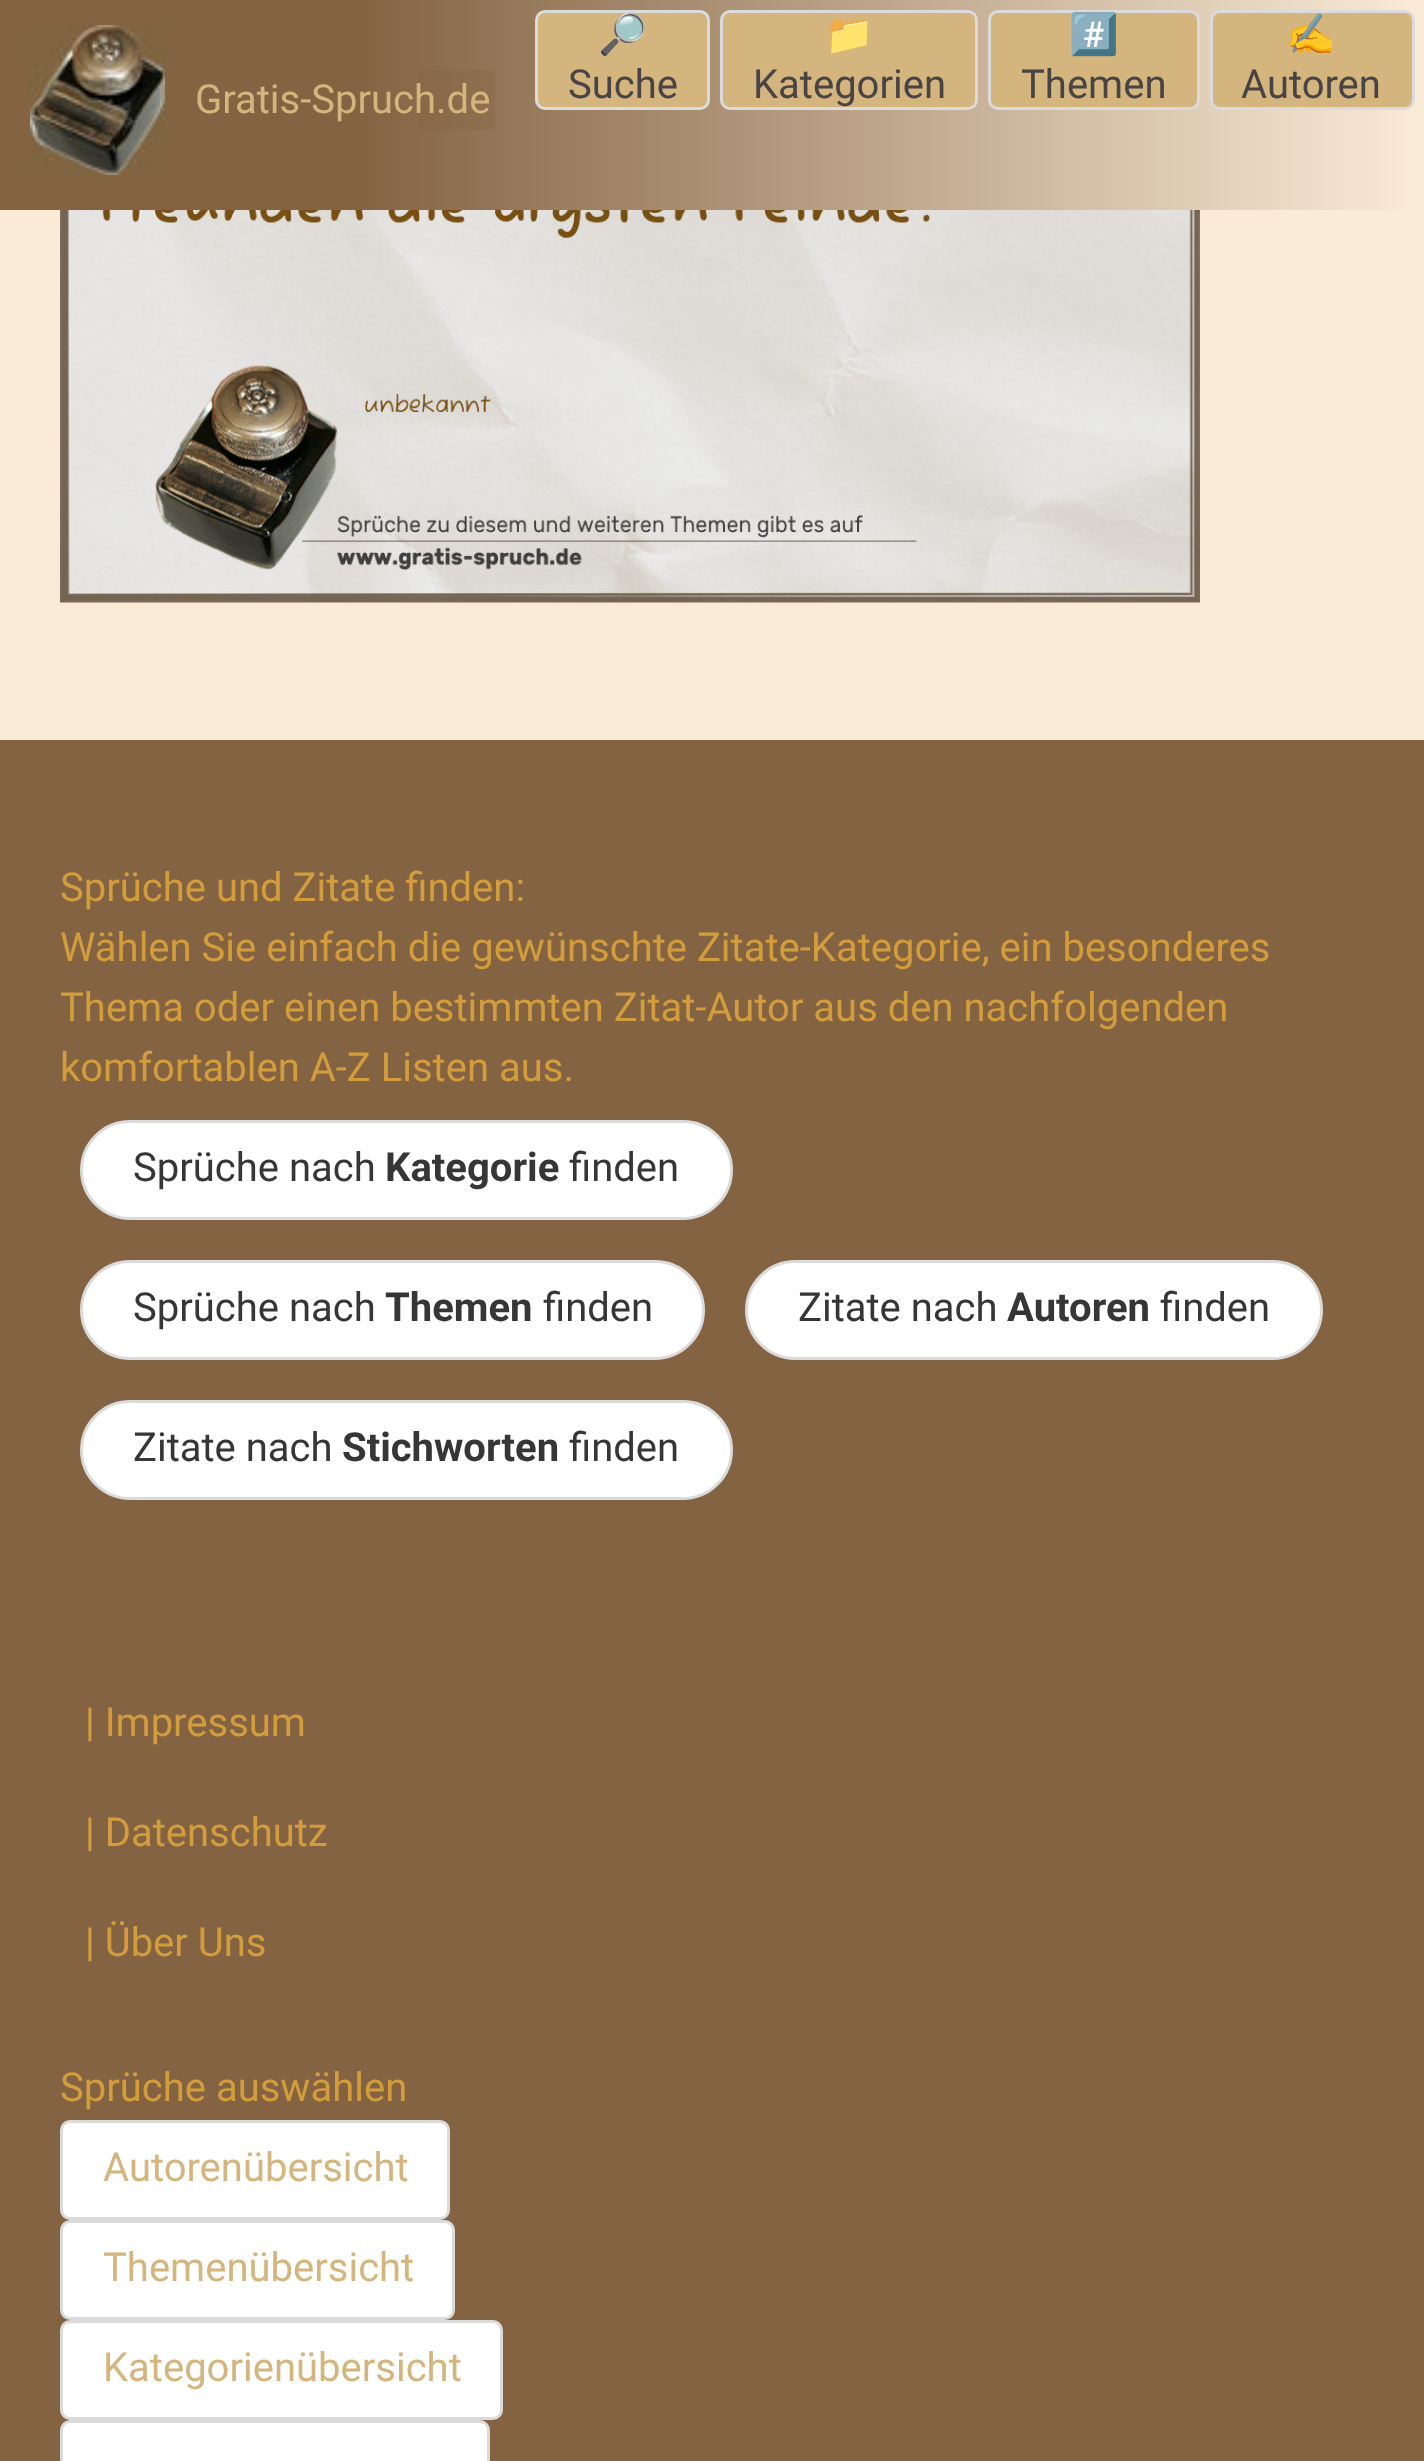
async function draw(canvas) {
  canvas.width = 1424
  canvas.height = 2461
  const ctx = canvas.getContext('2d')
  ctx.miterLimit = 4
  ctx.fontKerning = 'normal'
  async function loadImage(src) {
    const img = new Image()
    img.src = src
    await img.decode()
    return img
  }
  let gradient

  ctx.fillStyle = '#faebd7'
  ctx.fillRect(0, 0, 1424, 2461)
  gradient = ctx.createLinearGradient(0, 105, 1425, 105)
  gradient.addColorStop(0.25, '#846343')
  gradient.addColorStop(1, '#faebd7')
  ctx.fillStyle = gradient
  ctx.fillRect(0, 0, 1407, 210)
  ctx.drawImage(await loadImage('image0.png'), 30, 25, 135, 150)
  ctx.fillStyle = '#8463434d'
  ctx.fillRect(418, 70, 77, 60)
  ctx.font = '40px Roboto'
  ctx.fillStyle = '#d4b57e'
  ctx.fillText('Gratis-Spruch.de', 195, 113)
  ctx.beginPath()
  ctx.roundRect(536.5, 11.5, 172, 97, 8.5)
  ctx.fill()
  ctx.strokeStyle = '#dbdbdb'
  ctx.lineWidth = 3
  ctx.stroke()
  ctx.font = '40px Noto Color Emoji'
  ctx.fillStyle = '#484446'
  ctx.fillText('🔎', 598, 48)
  ctx.font = '40px Roboto'
  ctx.fillText('Suche', 568, 98)
  ctx.fillStyle = '#d4b57e'
  ctx.beginPath()
  ctx.roundRect(721.5, 11.5, 255, 97, 8.5)
  ctx.fill()
  ctx.stroke()
  ctx.font = '40px Noto Color Emoji'
  ctx.fillStyle = '#484446'
  ctx.fillText('📁', 824, 48)
  ctx.font = '40px Roboto'
  ctx.fillText('Kategorien', 753, 98)
  ctx.fillStyle = '#d4b57e'
  ctx.beginPath()
  ctx.roundRect(989.5, 11.5, 209, 97, 8.5)
  ctx.fill()
  ctx.stroke()
  ctx.font = '40px Noto Color Emoji'
  ctx.fillStyle = '#484446'
  ctx.fillText('#️⃣', 1069, 48)
  ctx.font = '40px Roboto'
  ctx.fillText('Themen', 1021, 98)
  ctx.fillStyle = '#d4b57e'
  ctx.beginPath()
  ctx.roundRect(1211.5, 11.5, 202, 97, 8.5)
  ctx.fill()
  ctx.stroke()
  ctx.font = '40px Noto Color Emoji'
  ctx.fillStyle = '#484446'
  ctx.fillText('✍️', 1286, 48)
  ctx.font = '40px Roboto'
  ctx.fillText('Autoren', 1241, 98)
  ctx.drawImage(await loadImage('image1.png'), 60, 210, 1140, 393)
  ctx.fillStyle = '#846343'
  ctx.fillRect(0, 740, 1424, 1721)
  ctx.fillStyle = '#d39d3c'
  ctx.fillText('Sprüche und Zitate finden:', 60, 901)
  ctx.fillText('Wählen Sie einfach die gewünschte Zitate-Kategorie, ein besonderes', 60, 961)
  ctx.fillText('Thema oder einen bestimmten Zitat-Autor aus den nachfolgenden', 60, 1021)
  ctx.fillText('komfortablen A-Z Listen aus.', 60, 1081)
  ctx.fillStyle = '#fff'
  ctx.beginPath()
  ctx.roundRect(81.5, 1121.5, 650, 97, 48.5)
  ctx.fill()
  ctx.stroke()
  ctx.fillStyle = '#363636'
  ctx.fillText('Sprüche nach', 133, 1181)
  ctx.font = 'bold 40px Roboto'
  ctx.fillText('Kategorie', 385, 1181)
  ctx.font = '40px Roboto'
  ctx.fillText('finden', 569, 1181)
  ctx.fillStyle = '#fff'
  ctx.beginPath()
  ctx.roundRect(81.5, 1261.5, 622, 97, 48.5)
  ctx.fill()
  ctx.stroke()
  ctx.fillStyle = '#363636'
  ctx.fillText('Sprüche nach', 133, 1321)
  ctx.font = 'bold 40px Roboto'
  ctx.fillText('Themen', 385, 1321)
  ctx.font = '40px Roboto'
  ctx.fillText('finden', 543, 1321)
  ctx.fillStyle = '#fff'
  ctx.beginPath()
  ctx.roundRect(746.5, 1261.5, 575, 97, 48.5)
  ctx.fill()
  ctx.stroke()
  ctx.fillStyle = '#363636'
  ctx.fillText('Zitate nach', 798, 1321)
  ctx.font = 'bold 40px Roboto'
  ctx.fillText('Autoren', 1007, 1321)
  ctx.font = '40px Roboto'
  ctx.fillText('finden', 1160, 1321)
  ctx.fillStyle = '#fff'
  ctx.beginPath()
  ctx.roundRect(81.5, 1401.5, 650, 97, 48.5)
  ctx.fill()
  ctx.stroke()
  ctx.fillStyle = '#363636'
  ctx.fillText('Zitate nach', 133, 1461)
  ctx.font = 'bold 40px Roboto'
  ctx.fillText('Stichworten', 342, 1461)
  ctx.font = '40px Roboto'
  ctx.fillText('finden', 569, 1461)
  ctx.fillStyle = '#d39d3c'
  ctx.fillText('| Impressum', 85, 1736)
  ctx.fillText('| Datenschutz', 85, 1846)
  ctx.fillText('| Über Uns', 85, 1956)
  ctx.fillText('Sprüche auswählen', 60, 2101)
  ctx.fillStyle = '#fff'
  ctx.beginPath()
  ctx.roundRect(61.5, 2121.5, 387, 97, 8.5)
  ctx.fill()
  ctx.stroke()
  ctx.fillStyle = '#d4b57e'
  ctx.fillText('Autorenübersicht', 103, 2181)
  ctx.fillStyle = '#fff'
  ctx.beginPath()
  ctx.roundRect(61.5, 2221.5, 392, 97, 8.5)
  ctx.fill()
  ctx.stroke()
  ctx.fillStyle = '#d4b57e'
  ctx.fillText('Themenübersicht', 103, 2281)
  ctx.fillStyle = '#fff'
  ctx.beginPath()
  ctx.roundRect(61.5, 2321.5, 440, 97, 8.5)
  ctx.fill()
  ctx.stroke()
  ctx.fillStyle = '#d4b57e'
  ctx.fillText('Kategorienübersicht', 103, 2381)
  ctx.fillStyle = '#fff'
  ctx.beginPath()
  ctx.roundRect(61.5, 2421.5, 427, 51, 8.5)
  ctx.fill()
  ctx.stroke()
}

draw(document.querySelector('canvas'))
